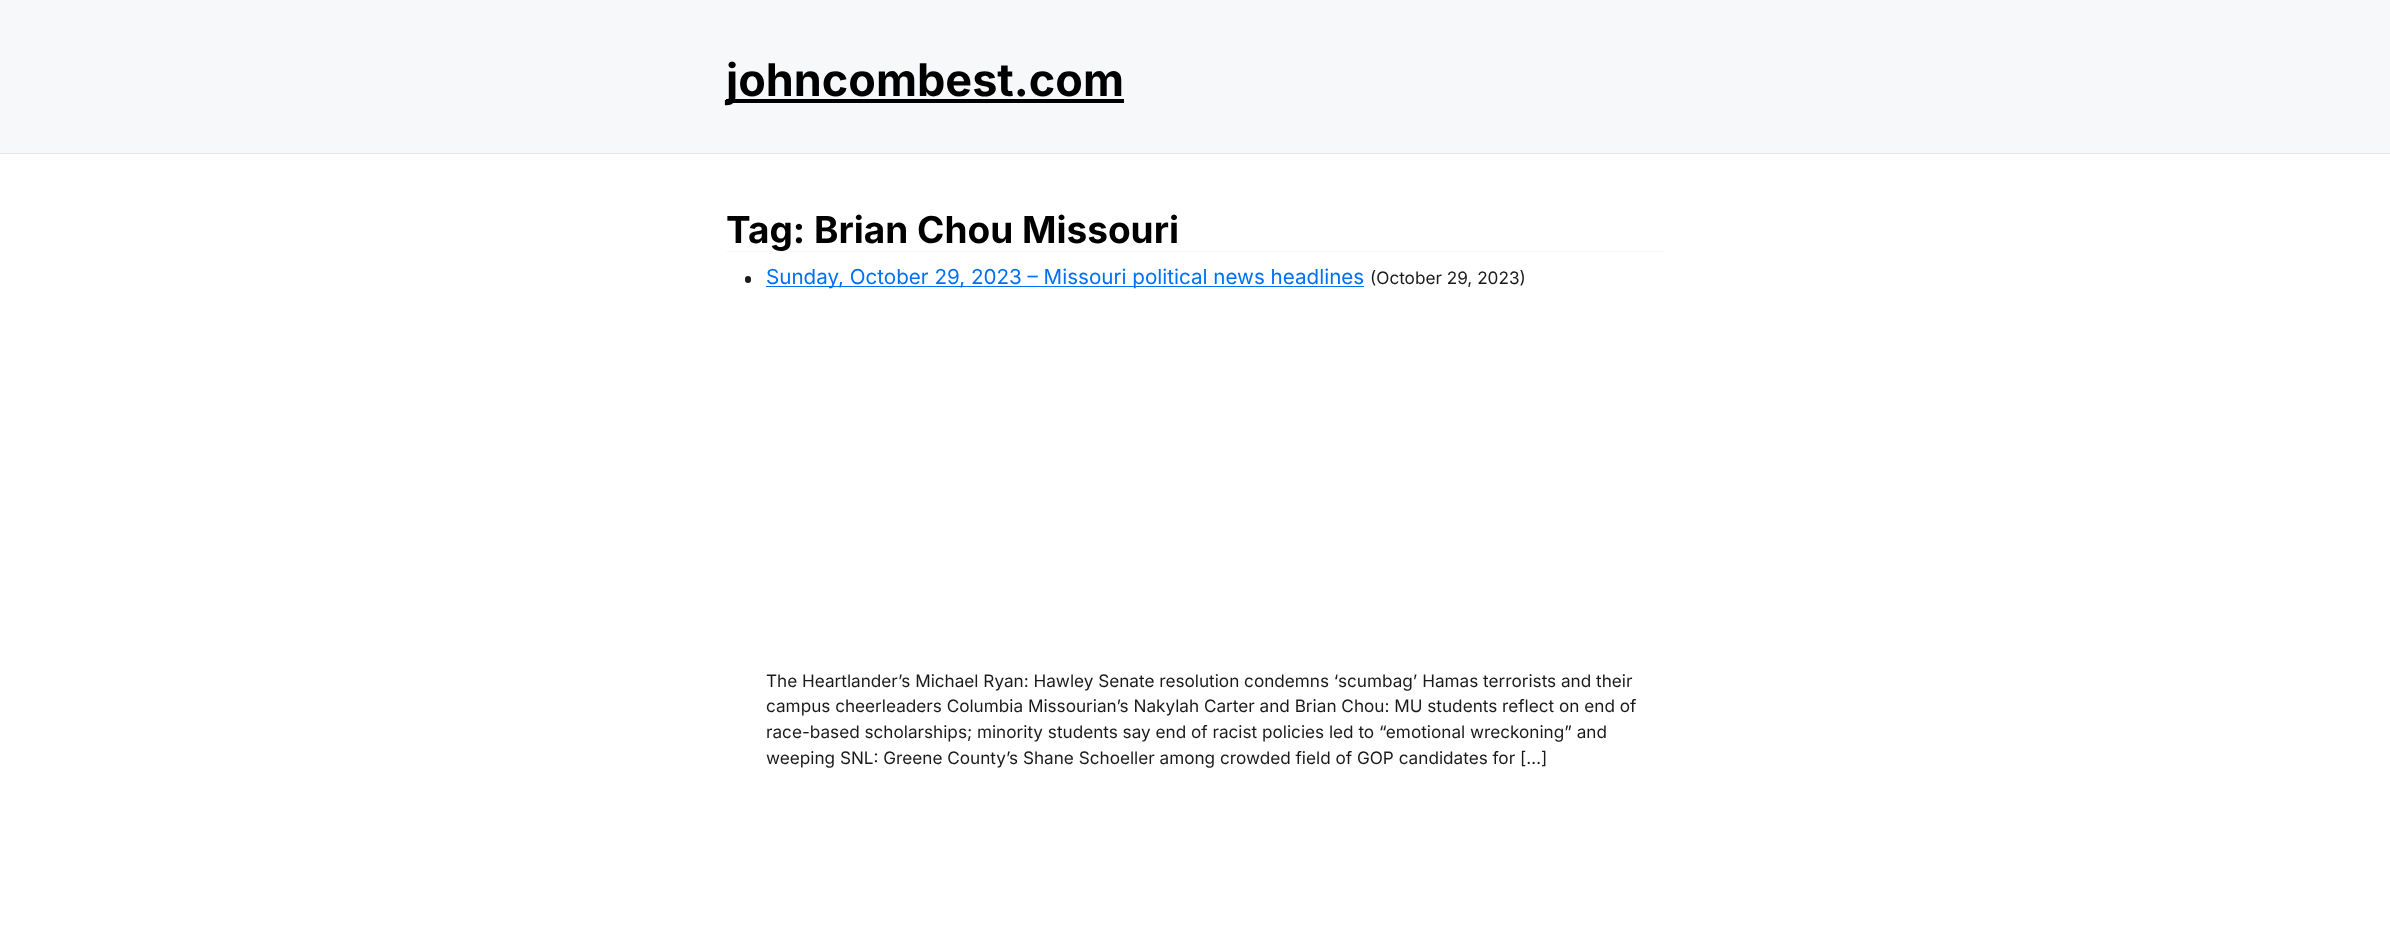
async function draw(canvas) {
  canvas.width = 2390
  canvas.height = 932
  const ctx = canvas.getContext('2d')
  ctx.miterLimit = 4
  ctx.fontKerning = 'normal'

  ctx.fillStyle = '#fff'
  ctx.fillRect(0, 0, 2390, 932)
  ctx.fillStyle = '#f6f8fa'
  ctx.fillRect(0, 0, 2390, 153)
  ctx.fillStyle = '#e5e7eb'
  ctx.fillRect(0, 153, 2390, 1)
  ctx.fillStyle = '#000'
  ctx.fillRect(726, 99, 398, 4)
  ctx.font = 'bold 45px Inter'
  ctx.fillText('johncombest.com', 726, 96)
  ctx.fillStyle = '#f6f8fa'
  ctx.fillRect(726, 251, 938, 1)
  ctx.font = 'bold 37px Inter'
  ctx.fillStyle = '#000'
  ctx.fillText('Tag: Brian Chou Missouri', 726, 243)
  ctx.fillStyle = '#1a1a1a'
  ctx.beginPath()
  ctx.roundRect(745, 276, 6, 7, 3)
  ctx.fill()
  ctx.fillStyle = '#0070f3'
  ctx.fillRect(766, 286, 598, 1)
  ctx.font = '20.6px Inter'
  ctx.fillText('Sunday, October 29, 2023 – Missouri political news headlines', 766, 284)
  ctx.font = '17.17px Inter'
  ctx.fillStyle = '#1a1a1a'
  ctx.fillText('(October 29, 2023)', 1370, 284)
  ctx.fillText('The Heartlander’s Michael Ryan: Hawley Senate resolution condemns ‘scumbag’ Hamas terrorists and their', 766, 687)
  ctx.fillText('campus cheerleaders Columbia Missourian’s Nakylah Carter and Brian Chou: MU students reflect on end of', 766, 712)
  ctx.fillText('race-based scholarships; minority students say end of racist policies led to “emotional wreckoning” and', 766, 738)
  ctx.fillText('weeping SNL: Greene County’s Shane Schoeller among crowded field of GOP candidates for […]', 766, 764)
}

draw(document.querySelector('canvas'))
